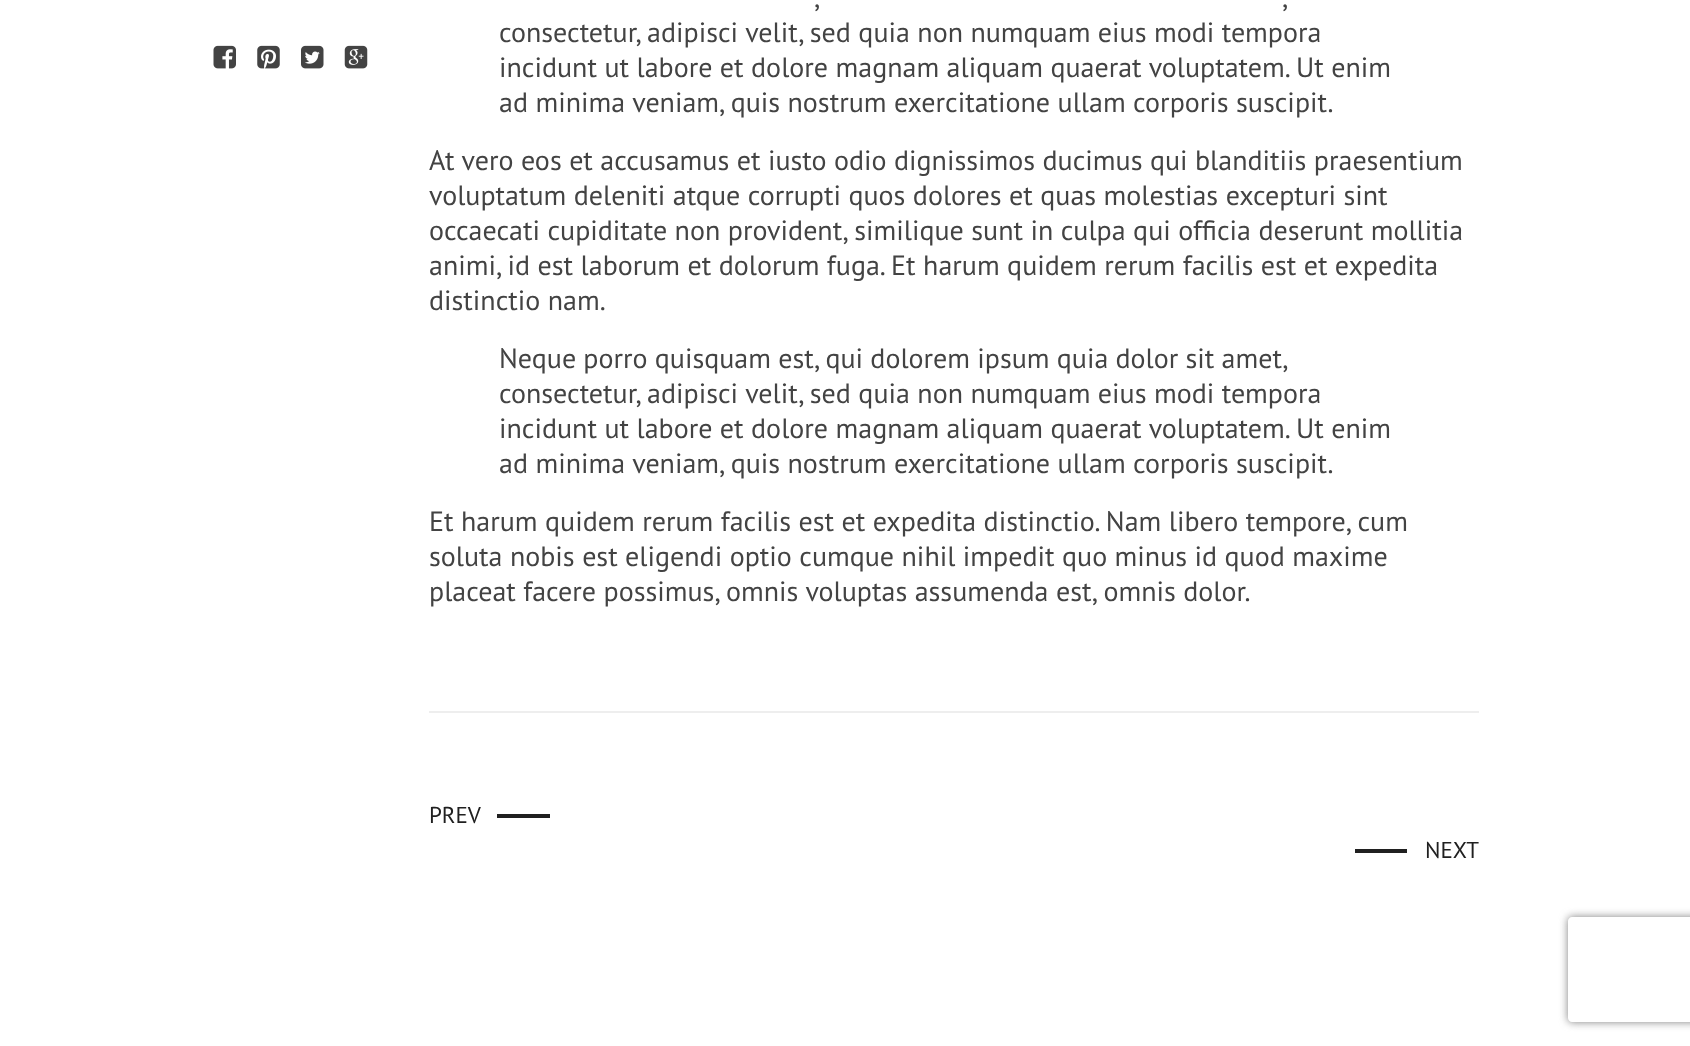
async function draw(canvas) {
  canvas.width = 1690
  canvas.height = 1046
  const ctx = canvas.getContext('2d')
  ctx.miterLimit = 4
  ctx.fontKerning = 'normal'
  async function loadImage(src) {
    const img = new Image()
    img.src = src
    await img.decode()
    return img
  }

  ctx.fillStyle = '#fff'
  ctx.fillRect(0, 0, 1690, 1046)
  ctx.drawImage(await loadImage('image0.png'), 213, 45, 23, 24)
  ctx.drawImage(await loadImage('image1.png'), 257, 45, 23, 24)
  ctx.drawImage(await loadImage('image2.png'), 301, 45, 23, 24)
  ctx.drawImage(await loadImage('image3.png'), 344, 45, 24, 24)
  ctx.wordSpacing = '-0.25px'
  ctx.font = '28px PT Sans'
  ctx.fillStyle = '#434343'
  ctx.fillText(',', 814, 7)
  ctx.fillText(',', 1282, 7)
  ctx.wordSpacing = '0px'
  ctx.fillText('consectetur, adipisci velit, sed quia non numquam eius modi tempora', 499, 42)
  ctx.fillText('incidunt ut labore et dolore magnam aliquam quaerat voluptatem. Ut enim', 499, 77)
  ctx.fillText('ad minima veniam, quis nostrum exercitatione ullam corporis suscipit.', 499, 112)
  ctx.fillText('At vero eos et accusamus et iusto odio dignissimos ducimus qui blanditiis praesentium', 429, 170)
  ctx.fillText('voluptatum deleniti atque corrupti quos dolores et quas molestias excepturi sint', 429, 205)
  ctx.fillText('occaecati cupiditate non provident, similique sunt in culpa qui officia deserunt mollitia', 429, 240)
  ctx.fillText('animi, id est laborum et dolorum fuga. Et harum quidem rerum facilis est et expedita', 429, 275)
  ctx.fillText('distinctio nam.', 429, 310)
  ctx.wordSpacing = '-0.25px'
  ctx.fillText('Neque porro quisquam est, qui dolorem ipsum quia dolor sit amet,', 499, 368)
  ctx.wordSpacing = '0px'
  ctx.fillText('consectetur, adipisci velit, sed quia non numquam eius modi tempora', 499, 403)
  ctx.fillText('incidunt ut labore et dolore magnam aliquam quaerat voluptatem. Ut enim', 499, 438)
  ctx.fillText('ad minima veniam, quis nostrum exercitatione ullam corporis suscipit.', 499, 473)
  ctx.fillText('Et harum quidem rerum facilis est et expedita distinctio. Nam libero tempore, cum', 429, 531)
  ctx.fillText('soluta nobis est eligendi optio cumque nihil impedit quo minus id quod maxime', 429, 566)
  ctx.fillText('placeat facere possimus, omnis voluptas assumenda est, omnis dolor.', 429, 601)
  ctx.fillStyle = '#eee'
  ctx.fillRect(429, 711, 1050, 2)
  ctx.font = '23px PT Sans'
  ctx.fillStyle = '#202020'
  ctx.fillText('PREV', 429, 823)
  ctx.fillRect(497, 814, 53, 4)
  ctx.fillRect(1355, 849, 52, 4)
  ctx.fillText('NEXT', 1425, 858)
  ctx.save()
  ctx.beginPath()
  ctx.moveTo(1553, 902)
  ctx.lineTo(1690, 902)
  ctx.lineTo(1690, 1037)
  ctx.lineTo(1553, 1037)
  ctx.closePath()
  ctx.moveTo(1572, 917)
  ctx.lineTo(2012, 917)
  ctx.bezierCurveTo(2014, 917, 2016, 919, 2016, 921)
  ctx.lineTo(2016, 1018)
  ctx.bezierCurveTo(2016, 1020, 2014, 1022, 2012, 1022)
  ctx.lineTo(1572, 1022)
  ctx.bezierCurveTo(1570, 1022, 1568, 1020, 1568, 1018)
  ctx.lineTo(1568, 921)
  ctx.bezierCurveTo(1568, 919, 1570, 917, 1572, 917)
  ctx.closePath()
  ctx.clip('evenodd')
  ctx.fillStyle = '#808080'
  ctx.filter = 'blur(4.5px)'
  ctx.beginPath()
  ctx.roundRect(1568, 917, 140, 105, 4)
  ctx.fill()
  ctx.filter = 'none'
  ctx.restore()
}

draw(document.querySelector('canvas'))
